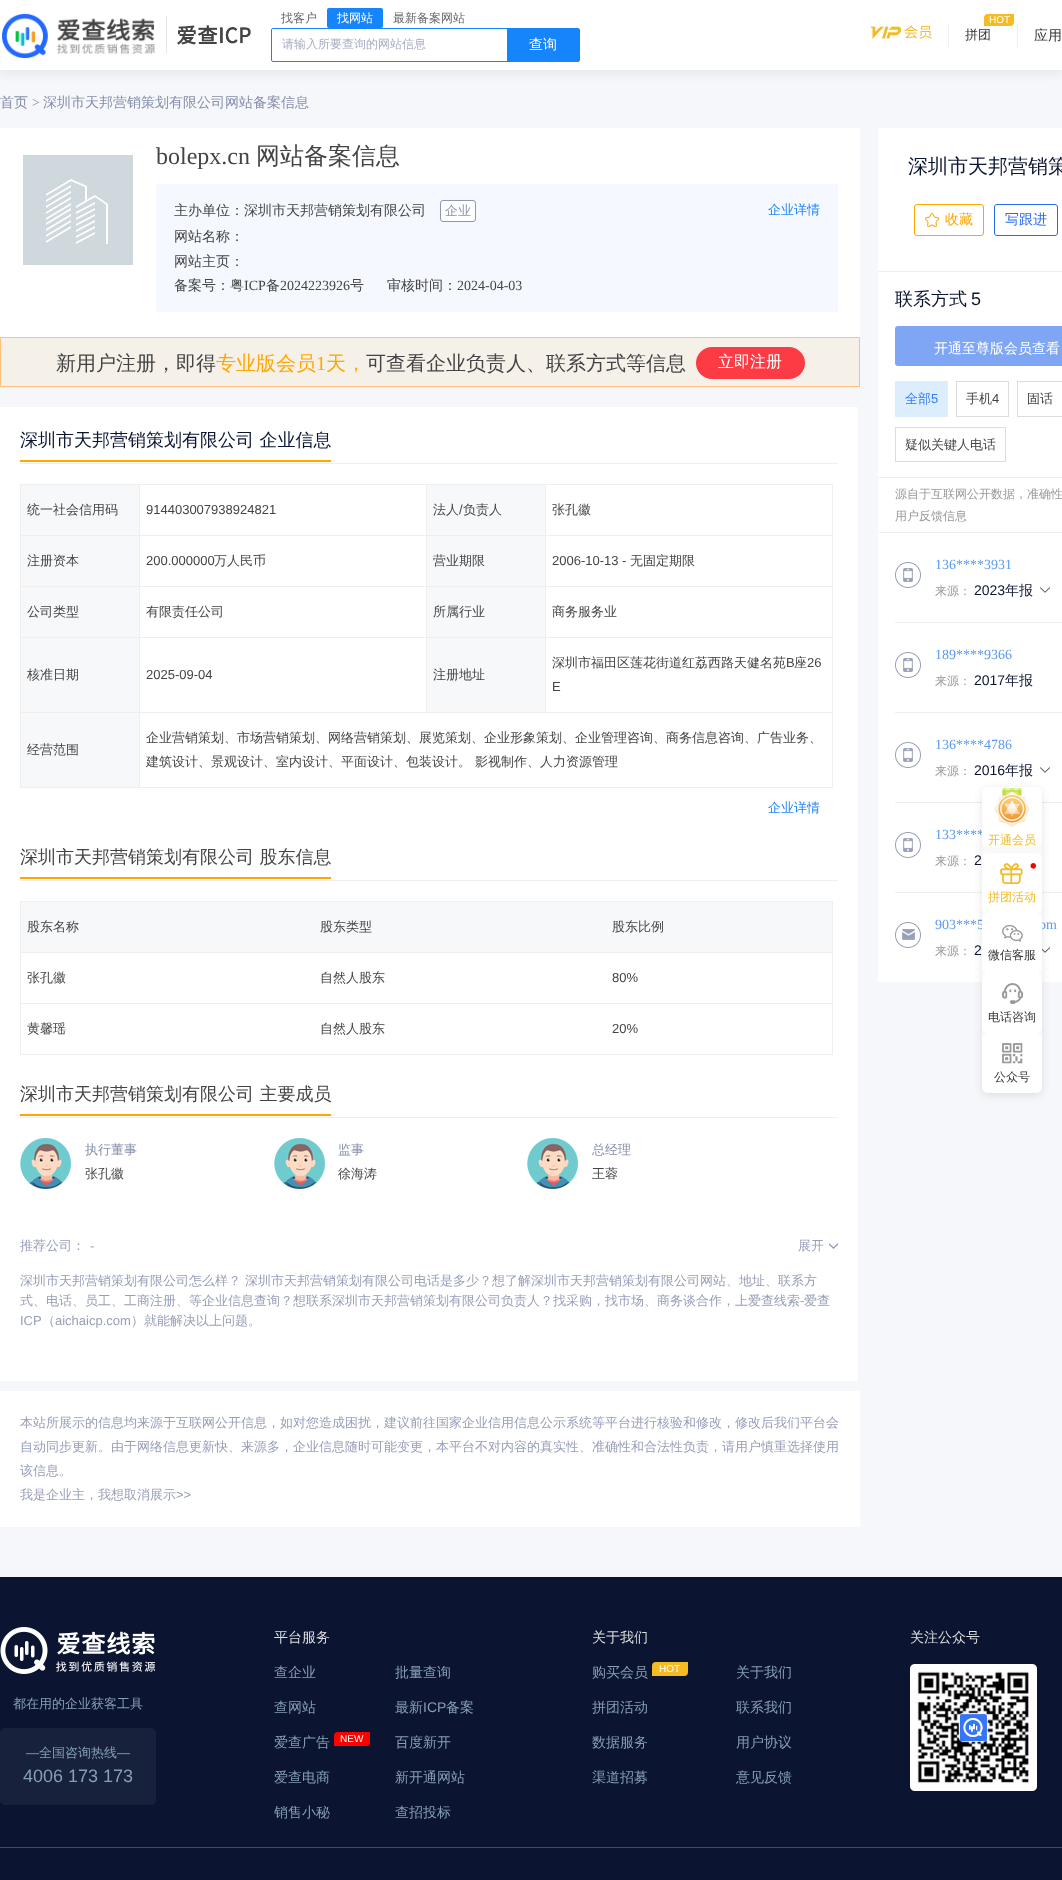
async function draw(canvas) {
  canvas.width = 1062
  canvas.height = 1880
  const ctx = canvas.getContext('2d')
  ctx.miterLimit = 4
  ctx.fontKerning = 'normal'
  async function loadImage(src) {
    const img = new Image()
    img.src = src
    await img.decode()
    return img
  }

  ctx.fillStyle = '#f5f7fa'
  ctx.fillRect(0, 0, 1062, 1880)
  ctx.fillStyle = '#cccccc4d'
  ctx.filter = 'blur(4px)'
  ctx.beginPath()
  ctx.rect(0, 5, 1062, 70)
  ctx.fill()
  ctx.filter = 'none'
  ctx.fillStyle = '#fff'
  ctx.fillRect(0, 0, 1062, 70)
  ctx.drawImage(await loadImage('image0.png'), 2, 13, 153, 46)
  ctx.fillStyle = '#e6e8eb'
  ctx.fillRect(166, 16, 1, 38)
  ctx.drawImage(await loadImage('image1.png'), 177, 25, 74, 20)
  ctx.font = '500 12px WenQuanYi Zen Hei'
  ctx.fillStyle = '#666'
  ctx.fillText('找客户', 281, 22)
  ctx.fillStyle = '#1685fb'
  ctx.beginPath()
  ctx.roundRect(327, 8, 56, 20, 2)
  ctx.fill()
  ctx.fillStyle = '#fff'
  ctx.fillText('找网站', 337, 22)
  ctx.fillStyle = '#666'
  ctx.fillText('最新备案网站', 393, 22)
  ctx.beginPath()
  ctx.roundRect(271.5, 28.5, 308, 33, 1.5)
  ctx.strokeStyle = '#1685fb'
  ctx.stroke()
  ctx.fillStyle = '#fff'
  ctx.fillRect(272, 29, 1, 1)
  ctx.fillStyle = '#a7acc1'
  ctx.fillText('请输入所要查询的网站信息', 282, 48)
  ctx.fillStyle = '#1685fb'
  ctx.fillRect(507, 29, 72, 32)
  ctx.font = '500 14px WenQuanYi Zen Hei'
  ctx.fillStyle = '#fff'
  ctx.fillText('查询', 529, 49)
  ctx.drawImage(await loadImage('image2.png'), 871, 25, 61, 14)
  ctx.fillStyle = '#f1f1f1'
  ctx.fillRect(948, 23, 1, 25)
  ctx.fillStyle = '#f4bb22'
  ctx.beginPath()
  ctx.roundRect(984, 14, 30, 12, [4, 0, 4, 0])
  ctx.fill()
  ctx.font = '10px Liberation Sans'
  ctx.fillStyle = '#fff'
  ctx.fillText('HOT', 989, 23)
  ctx.font = '500 13px WenQuanYi Zen Hei'
  ctx.fillStyle = '#333'
  ctx.fillText('拼团', 965, 39)
  ctx.fillStyle = '#f1f1f1'
  ctx.fillRect(1017, 23, 1, 25)
  ctx.font = '500 14px WenQuanYi Zen Hei'
  ctx.fillStyle = '#333'
  ctx.fillText('应用', 1034, 40)
  ctx.fillStyle = '#858eab'
  ctx.fillText('首页', 0, 107)
  ctx.font = '14px Liberation Serif'
  ctx.fillText('>', 32, 107)
  ctx.font = '500 14px WenQuanYi Zen Hei'
  ctx.fillText('深圳市天邦营销策划有限公司网站备案信息', 43, 107)
  ctx.fillStyle = '#fff'
  ctx.fillRect(0, 128, 860, 209)
  ctx.drawImage(await loadImage('image3.png'), 23, 155, 110, 110)
  ctx.font = '24px Liberation Serif'
  ctx.fillStyle = '#444'
  ctx.fillText('bolepx.cn', 156, 164)
  ctx.font = '500 24px WenQuanYi Zen Hei'
  ctx.fillText('网站备案信息', 256, 164)
  ctx.fillStyle = '#f5f9ff'
  ctx.fillRect(156, 184, 682, 128)
  ctx.font = '500 14px WenQuanYi Zen Hei'
  ctx.fillStyle = '#444'
  ctx.fillText('主办单位：深圳市天邦营销策划有限公司', 174, 215)
  ctx.fillStyle = '#fff'
  ctx.beginPath()
  ctx.roundRect(440.5, 200.5, 35, 21, 2.5)
  ctx.fill()
  ctx.strokeStyle = '#8e96b0'
  ctx.stroke()
  ctx.font = '500 13px WenQuanYi Zen Hei'
  ctx.fillStyle = '#8c95af'
  ctx.fillText('企业', 445, 215)
  ctx.fillStyle = '#2286f7'
  ctx.fillText('企业详情', 768, 214)
  ctx.font = '500 14px WenQuanYi Zen Hei'
  ctx.fillStyle = '#444'
  ctx.fillText('网站名称：', 174, 241)
  ctx.fillText('网站主页：', 174, 266)
  ctx.fillText('备案号：粤', 174, 290)
  ctx.font = '14px Liberation Serif'
  ctx.fillText('ICP', 244, 290)
  ctx.font = '500 14px WenQuanYi Zen Hei'
  ctx.fillText('备', 266, 290)
  ctx.font = '14px Liberation Serif'
  ctx.fillText('2024223926', 280, 290)
  ctx.font = '500 14px WenQuanYi Zen Hei'
  ctx.fillText('号', 350, 290)
  ctx.fillText('审核时间：', 387, 290)
  ctx.font = '14px Liberation Serif'
  ctx.fillText('2024-04-03', 457, 290)
  ctx.fillStyle = '#f5f1e9'
  ctx.beginPath()
  ctx.rect(0.5, 337.5, 859, 49)
  ctx.fill()
  ctx.strokeStyle = '#ffc07c'
  ctx.stroke()
  ctx.font = '500 20px WenQuanYi Zen Hei'
  ctx.fillStyle = '#444'
  ctx.fillText('新用户注册，即得', 56, 370)
  ctx.fillStyle = '#ffa601'
  ctx.fillText('专业版会员', 216, 370)
  ctx.font = '20px Liberation Serif'
  ctx.fillText('1', 316, 370)
  ctx.font = '500 20px WenQuanYi Zen Hei'
  ctx.fillText('天，', 326, 370)
  ctx.fillStyle = '#444'
  ctx.fillText('可查看企业负责人、联系方式等信息', 366, 370)
  ctx.fillStyle = '#fc3b45'
  ctx.beginPath()
  ctx.roundRect(696, 347, 109, 32, 16)
  ctx.fill()
  ctx.font = '500 16px WenQuanYi Zen Hei'
  ctx.fillStyle = '#fff'
  ctx.fillText('立即注册', 718, 367)
  ctx.fillRect(0, 407, 858, 974)
  ctx.fillStyle = '#efefef'
  ctx.fillRect(20, 463, 818, 1)
  ctx.font = '500 18px WenQuanYi Zen Hei'
  ctx.fillStyle = '#0b1531'
  ctx.fillText('深圳市天邦营销策划有限公司 企业信息', 20, 446)
  ctx.fillStyle = '#ffa601'
  ctx.fillRect(20, 460, 311, 2)
  ctx.fillStyle = '#efefef'
  ctx.fillRect(20, 484, 813, 1)
  ctx.fillRect(20, 484, 1, 304)
  ctx.fillStyle = '#f7f8fa'
  ctx.fillRect(21, 485, 118, 50)
  ctx.fillStyle = '#efefef'
  ctx.fillRect(832, 484, 1, 304)
  ctx.fillRect(545, 712, 288, 1)
  ctx.fillRect(545, 637, 1, 76)
  ctx.fillRect(545, 637, 288, 1)
  ctx.fillRect(545, 586, 1, 52)
  ctx.fillRect(545, 586, 288, 1)
  ctx.fillRect(545, 535, 1, 52)
  ctx.fillRect(545, 535, 288, 1)
  ctx.fillRect(545, 484, 1, 52)
  ctx.fillRect(426, 712, 120, 1)
  ctx.fillRect(426, 637, 1, 76)
  ctx.fillRect(426, 637, 120, 1)
  ctx.fillRect(426, 586, 1, 52)
  ctx.fillRect(426, 586, 120, 1)
  ctx.fillRect(426, 535, 1, 52)
  ctx.fillRect(426, 535, 120, 1)
  ctx.fillRect(426, 484, 1, 52)
  ctx.fillRect(139, 787, 694, 1)
  ctx.fillRect(139, 712, 1, 76)
  ctx.fillRect(139, 712, 288, 1)
  ctx.fillRect(139, 637, 1, 76)
  ctx.fillRect(139, 637, 288, 1)
  ctx.fillRect(139, 586, 1, 52)
  ctx.fillRect(139, 586, 288, 1)
  ctx.fillRect(139, 535, 1, 52)
  ctx.fillRect(139, 535, 288, 1)
  ctx.fillRect(139, 484, 1, 52)
  ctx.fillRect(20, 535, 120, 1)
  ctx.font = '500 13px WenQuanYi Zen Hei'
  ctx.fillStyle = '#444'
  ctx.fillText('统一社会信用码', 27, 514)
  ctx.font = '13px Liberation Sans'
  ctx.fillText('914403007938924821', 146, 514)
  ctx.fillStyle = '#f7f8fa'
  ctx.fillRect(427, 485, 118, 50)
  ctx.font = '500 13px WenQuanYi Zen Hei'
  ctx.fillStyle = '#444'
  ctx.fillText('法人', 433, 514)
  ctx.font = '13px Liberation Sans'
  ctx.fillText('/', 459, 514)
  ctx.font = '500 13px WenQuanYi Zen Hei'
  ctx.fillText('负责人', 463, 514)
  ctx.fillText('张孔徽', 552, 514)
  ctx.fillStyle = '#f7f8fa'
  ctx.fillRect(21, 536, 118, 50)
  ctx.fillStyle = '#efefef'
  ctx.fillRect(20, 586, 120, 1)
  ctx.fillStyle = '#444'
  ctx.fillText('注册资本', 27, 565)
  ctx.font = '13px Liberation Sans'
  ctx.fillText('200.000000', 146, 565)
  ctx.font = '500 13px WenQuanYi Zen Hei'
  ctx.fillText('万人民币', 214, 565)
  ctx.fillStyle = '#f7f8fa'
  ctx.fillRect(427, 536, 118, 50)
  ctx.fillStyle = '#444'
  ctx.fillText('营业期限', 433, 565)
  ctx.font = '13px Liberation Sans'
  ctx.fillText('2006-10-13 -', 552, 565)
  ctx.font = '500 13px WenQuanYi Zen Hei'
  ctx.fillText('无固定期限', 630, 565)
  ctx.fillStyle = '#f7f8fa'
  ctx.fillRect(21, 587, 118, 50)
  ctx.fillStyle = '#efefef'
  ctx.fillRect(20, 637, 120, 1)
  ctx.fillStyle = '#444'
  ctx.fillText('公司类型', 27, 616)
  ctx.fillText('有限责任公司', 146, 616)
  ctx.fillStyle = '#f7f8fa'
  ctx.fillRect(427, 587, 118, 50)
  ctx.fillStyle = '#444'
  ctx.fillText('所属行业', 433, 616)
  ctx.fillText('商务服务业', 552, 616)
  ctx.fillStyle = '#f7f8fa'
  ctx.fillRect(21, 638, 118, 74)
  ctx.fillStyle = '#efefef'
  ctx.fillRect(20, 712, 120, 1)
  ctx.fillStyle = '#444'
  ctx.fillText('核准日期', 27, 679)
  ctx.font = '13px Liberation Sans'
  ctx.fillText('2025-09-04', 146, 679)
  ctx.fillStyle = '#f7f8fa'
  ctx.fillRect(427, 638, 118, 74)
  ctx.font = '500 13px WenQuanYi Zen Hei'
  ctx.fillStyle = '#444'
  ctx.fillText('注册地址', 433, 679)
  ctx.fillText('深圳市福田区莲花街道红荔西路天健名苑', 552, 667)
  ctx.font = '13px Liberation Sans'
  ctx.fillText('B', 786, 667)
  ctx.font = '500 13px WenQuanYi Zen Hei'
  ctx.fillText('座', 794, 667)
  ctx.font = '13px Liberation Sans'
  ctx.fillText('26', 807, 667)
  ctx.fillText('E', 552, 691)
  ctx.fillStyle = '#f7f8fa'
  ctx.fillRect(21, 713, 118, 74)
  ctx.fillStyle = '#efefef'
  ctx.fillRect(20, 787, 120, 1)
  ctx.font = '500 13px WenQuanYi Zen Hei'
  ctx.fillStyle = '#444'
  ctx.fillText('经营范围', 27, 754)
  ctx.fillText('企业营销策划、市场营销策划、网络营销策划、展览策划、企业形象策划、企业管理咨询、商务信息咨询、广告业务、', 146, 742)
  ctx.fillText('建筑设计、景观设计、室内设计、平面设计、包装设计。 影视制作、人力资源管理', 146, 766)
  ctx.fillStyle = '#2286f7'
  ctx.fillText('企业详情', 768, 812)
  ctx.fillStyle = '#efefef'
  ctx.fillRect(20, 880, 818, 1)
  ctx.font = '500 18px WenQuanYi Zen Hei'
  ctx.fillStyle = '#444'
  ctx.fillText('深圳市天邦营销策划有限公司 股东信息', 20, 863)
  ctx.fillStyle = '#ffa601'
  ctx.fillRect(20, 877, 311, 2)
  ctx.fillStyle = '#efefef'
  ctx.fillRect(20, 901, 813, 1)
  ctx.fillRect(20, 901, 1, 154)
  ctx.fillStyle = '#f7f8fa'
  ctx.fillRect(21, 902, 811, 50)
  ctx.font = '500 13px WenQuanYi Zen Hei'
  ctx.fillStyle = '#444'
  ctx.fillText('股东名称', 27, 931)
  ctx.fillText('股东类型', 320, 931)
  ctx.fillStyle = '#efefef'
  ctx.fillRect(832, 901, 1, 154)
  ctx.fillRect(20, 952, 813, 1)
  ctx.fillStyle = '#444'
  ctx.fillText('股东比例', 612, 931)
  ctx.fillText('张孔徽', 27, 982)
  ctx.fillText('自然人股东', 320, 982)
  ctx.fillStyle = '#efefef'
  ctx.fillRect(20, 1003, 813, 1)
  ctx.font = '13px Liberation Sans'
  ctx.fillStyle = '#444'
  ctx.fillText('80%', 612, 982)
  ctx.font = '500 13px WenQuanYi Zen Hei'
  ctx.fillText('黄馨瑶', 27, 1033)
  ctx.fillText('自然人股东', 320, 1033)
  ctx.fillStyle = '#efefef'
  ctx.fillRect(20, 1054, 813, 1)
  ctx.font = '13px Liberation Sans'
  ctx.fillStyle = '#444'
  ctx.fillText('20%', 612, 1033)
  ctx.fillStyle = '#efefef'
  ctx.fillRect(20, 1117, 818, 1)
  ctx.font = '500 18px WenQuanYi Zen Hei'
  ctx.fillStyle = '#444'
  ctx.fillText('深圳市天邦营销策划有限公司 主要成员', 20, 1100)
  ctx.fillStyle = '#ffa601'
  ctx.fillRect(20, 1114, 311, 2)
  ctx.drawImage(await loadImage('image4.png'), 20, 1138, 51, 51)
  ctx.font = '500 13px WenQuanYi Zen Hei'
  ctx.fillStyle = '#858eab'
  ctx.fillText('执行董事', 85, 1154)
  ctx.fillStyle = '#444'
  ctx.fillText('张孔徽', 85, 1178)
  ctx.drawImage(await loadImage('image4.png'), 274, 1138, 51, 51)
  ctx.fillStyle = '#858eab'
  ctx.fillText('监事', 338, 1154)
  ctx.fillStyle = '#444'
  ctx.fillText('徐海涛', 338, 1178)
  ctx.drawImage(await loadImage('image4.png'), 527, 1138, 51, 51)
  ctx.fillStyle = '#858eab'
  ctx.fillText('总经理', 592, 1154)
  ctx.fillStyle = '#444'
  ctx.fillText('王蓉', 592, 1178)
  ctx.fillStyle = '#979eb7'
  ctx.fillText('推荐公司：', 20, 1250)
  ctx.font = '13px Liberation Serif'
  ctx.fillText('-', 90, 1250)
  ctx.drawImage(await loadImage('image5.png'), 829, 1243, 9, 6)
  ctx.font = '500 13px WenQuanYi Zen Hei'
  ctx.fillText('展开', 798, 1250)
  ctx.fillText('深圳市天邦营销策划有限公司怎么样？ 深圳市天邦营销策划有限公司电话是多少？想了解深圳市天邦营销策划有限公司网站、地址、联系方', 20, 1285)
  ctx.fillText('式、电话、员工、工商注册、等企业信息查询？想联系深圳市天邦营销策划有限公司负责人？找采购，找市场、商务谈合作，上爱查线索', 20, 1305)
  ctx.font = '13px Liberation Sans'
  ctx.fillText('-', 800, 1305)
  ctx.font = '500 13px WenQuanYi Zen Hei'
  ctx.fillText('爱查', 804, 1305)
  ctx.font = '13px Liberation Sans'
  ctx.fillText('ICP', 20, 1325)
  ctx.font = '500 13px WenQuanYi Zen Hei'
  ctx.fillText('（', 42, 1325)
  ctx.font = '13px Liberation Sans'
  ctx.fillText('aichaicp.com', 55, 1325)
  ctx.font = '500 13px WenQuanYi Zen Hei'
  ctx.fillText('）就能解决以上问题。', 131, 1325)
  ctx.fillStyle = '#fff'
  ctx.fillRect(0, 1391, 860, 136)
  ctx.fillStyle = '#979eb7'
  ctx.fillText('本站所展示的信息均来源于互联网公开信息，如对您造成困扰，建议前往国家企业信用信息公示系统等平台进行核验和修改，修改后我们平台会', 20, 1427)
  ctx.fillText('自动同步更新。由于网络信息更新快、来源多，企业信息随时可能变更，本平台不对内容的真实性、准确性和合法性负责，请用户慎重选择使用', 20, 1451)
  ctx.fillText('该信息。', 20, 1475)
  ctx.fillText('我是企业主，我想取消展示', 20, 1499)
  ctx.font = '13px Liberation Sans'
  ctx.fillText('>>', 176, 1499)
  ctx.fillStyle = '#fff'
  ctx.fillRect(878, 128, 184, 854)
  ctx.fillStyle = '#efefef'
  ctx.fillRect(878, 271, 184, 1)
  ctx.font = '500 20px WenQuanYi Zen Hei'
  ctx.fillStyle = '#0b1531'
  ctx.fillText('深圳市天邦营销策', 908, 173)
  ctx.drawImage(await loadImage('image6.png'), 925, 213, 14, 14)
  ctx.beginPath()
  ctx.roundRect(914.5, 204.5, 69, 31, 2.5)
  ctx.strokeStyle = '#ffa601'
  ctx.stroke()
  ctx.font = '500 14px WenQuanYi Zen Hei'
  ctx.fillStyle = '#ffa601'
  ctx.fillText('收藏', 945, 224)
  ctx.beginPath()
  ctx.roundRect(994.5, 204.5, 63, 31, 2.5)
  ctx.strokeStyle = '#296bef'
  ctx.stroke()
  ctx.fillStyle = '#296bef'
  ctx.fillText('写跟进', 1005, 224)
  ctx.font = '500 18px WenQuanYi Zen Hei'
  ctx.fillStyle = '#0b1531'
  ctx.fillText('联系方式', 895, 305)
  ctx.font = '18px Liberation Sans'
  ctx.fillText('5', 971, 305)
  ctx.fillStyle = '#7fa6f5'
  ctx.beginPath()
  ctx.roundRect(895, 326, 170, 40, 3)
  ctx.fill()
  ctx.font = '500 14px WenQuanYi Zen Hei'
  ctx.fillStyle = '#fff'
  ctx.fillText('开通至尊版会员查看', 934, 353)
  ctx.fillStyle = '#dcedfe'
  ctx.fillRect(895, 381, 53, 36)
  ctx.font = '500 13px WenQuanYi Zen Hei'
  ctx.fillStyle = '#327cf9'
  ctx.fillText('全部', 905, 403)
  ctx.font = '13px Liberation Sans'
  ctx.fillText('5', 931, 403)
  ctx.strokeStyle = '#dcdcdc'
  ctx.strokeRect(956.5, 381.5, 52, 35)
  ctx.font = '500 13px WenQuanYi Zen Hei'
  ctx.fillStyle = '#444'
  ctx.fillText('手机', 966, 403)
  ctx.font = '13px Liberation Sans'
  ctx.fillText('4', 992, 403)
  ctx.strokeRect(1017.5, 381.5, 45, 35)
  ctx.font = '500 13px WenQuanYi Zen Hei'
  ctx.fillText('固话', 1027, 403)
  ctx.strokeRect(895.5, 427.5, 110, 34)
  ctx.fillText('疑似关键人电话', 905, 449)
  ctx.fillStyle = '#efefef'
  ctx.fillRect(878, 477, 184, 1)
  ctx.font = '500 12px WenQuanYi Zen Hei'
  ctx.fillStyle = '#999'
  ctx.fillText('源自于互联网公开数据，准确性', 895, 498)
  ctx.fillStyle = '#efefef'
  ctx.fillRect(878, 532, 184, 1)
  ctx.fillStyle = '#999'
  ctx.fillText('用户反馈信息', 895, 520)
  ctx.fillStyle = '#eee'
  ctx.fillRect(895, 622, 167, 1)
  ctx.drawImage(await loadImage('image7.png'), 895, 562, 26, 26)
  ctx.font = '14px Liberation Serif'
  ctx.fillStyle = '#5d9cec'
  ctx.fillText('136****3931', 935, 569)
  ctx.font = '500 12px WenQuanYi Zen Hei'
  ctx.fillStyle = '#999'
  ctx.fillText('来源：', 935, 595)
  ctx.font = '14px Liberation Sans'
  ctx.fillStyle = '#0b1531'
  ctx.fillText('2023', 974, 595)
  ctx.font = '500 14px WenQuanYi Zen Hei'
  ctx.fillText('年报', 1005, 595)
  ctx.drawImage(await loadImage('image8.png'), 1040, 587, 10, 6)
  ctx.fillStyle = '#eee'
  ctx.fillRect(895, 712, 167, 1)
  ctx.drawImage(await loadImage('image7.png'), 895, 652, 26, 26)
  ctx.font = '14px Liberation Serif'
  ctx.fillStyle = '#5d9cec'
  ctx.fillText('189****9366', 935, 659)
  ctx.font = '500 12px WenQuanYi Zen Hei'
  ctx.fillStyle = '#999'
  ctx.fillText('来源：', 935, 685)
  ctx.font = '14px Liberation Sans'
  ctx.fillStyle = '#0b1531'
  ctx.fillText('2017', 974, 685)
  ctx.font = '500 14px WenQuanYi Zen Hei'
  ctx.fillText('年报', 1005, 685)
  ctx.fillStyle = '#eee'
  ctx.fillRect(895, 802, 167, 1)
  ctx.drawImage(await loadImage('image7.png'), 895, 742, 26, 26)
  ctx.font = '14px Liberation Serif'
  ctx.fillStyle = '#5d9cec'
  ctx.fillText('136****4786', 935, 749)
  ctx.font = '500 12px WenQuanYi Zen Hei'
  ctx.fillStyle = '#999'
  ctx.fillText('来源：', 935, 775)
  ctx.font = '14px Liberation Sans'
  ctx.fillStyle = '#0b1531'
  ctx.fillText('2016', 974, 775)
  ctx.font = '500 14px WenQuanYi Zen Hei'
  ctx.fillText('年报', 1005, 775)
  ctx.drawImage(await loadImage('image8.png'), 1040, 767, 10, 6)
  ctx.fillStyle = '#eee'
  ctx.fillRect(895, 892, 167, 1)
  ctx.drawImage(await loadImage('image7.png'), 895, 832, 26, 26)
  ctx.font = '14px Liberation Serif'
  ctx.fillStyle = '#5d9cec'
  ctx.fillText('133****', 935, 839)
  ctx.font = '500 12px WenQuanYi Zen Hei'
  ctx.fillStyle = '#999'
  ctx.fillText('来源：', 935, 865)
  ctx.font = '14px Liberation Sans'
  ctx.fillStyle = '#0b1531'
  ctx.fillText('2', 974, 865)
  ctx.drawImage(await loadImage('image9.png'), 895, 922, 26, 26)
  ctx.font = '14px Liberation Serif'
  ctx.fillStyle = '#5d9cec'
  ctx.fillText('903***5', 935, 929)
  ctx.fillText('om', 1039, 929)
  ctx.font = '500 12px WenQuanYi Zen Hei'
  ctx.fillStyle = '#999'
  ctx.fillText('来源：', 935, 955)
  ctx.font = '14px Liberation Sans'
  ctx.fillStyle = '#0b1531'
  ctx.fillText('2', 974, 955)
  ctx.drawImage(await loadImage('image10.png'), 1042, 947, 8, 6)
  ctx.fillStyle = '#0000001a'
  ctx.filter = 'blur(4px)'
  ctx.beginPath()
  ctx.roundRect(982, 789, 60, 306, 6)
  ctx.fill()
  ctx.filter = 'none'
  ctx.fillStyle = '#f9f9f9'
  ctx.beginPath()
  ctx.roundRect(982, 787, 60, 306, 6)
  ctx.fill()
  ctx.fillStyle = '#fff'
  ctx.beginPath()
  ctx.roundRect(982, 787, 60, 60, 6)
  ctx.fill()
  ctx.drawImage(await loadImage('image11.png'), 994, 788, 36, 39)
  ctx.font = '500 12px WenQuanYi Zen Hei'
  ctx.fillStyle = '#f4bb22'
  ctx.fillText('开通会员', 988, 844)
  ctx.fillStyle = '#fff'
  ctx.beginPath()
  ctx.roundRect(982, 853, 60, 60, 6)
  ctx.fill()
  ctx.drawImage(await loadImage('image12.png'), 1000, 863, 36, 21)
  ctx.fillStyle = '#f4bb22'
  ctx.fillText('拼团活动', 988, 901)
  ctx.fillStyle = '#fff'
  ctx.beginPath()
  ctx.roundRect(982, 913, 60, 60, 6)
  ctx.fill()
  ctx.drawImage(await loadImage('image13.png'), 1002, 925, 21, 17)
  ctx.fillStyle = '#333'
  ctx.fillText('微信客服', 988, 959)
  ctx.fillStyle = '#fff'
  ctx.beginPath()
  ctx.roundRect(982, 973, 60, 60, 6)
  ctx.fill()
  ctx.drawImage(await loadImage('image14.png'), 1002, 983, 21, 21)
  ctx.fillStyle = '#333'
  ctx.fillText('电话咨询', 988, 1021)
  ctx.fillStyle = '#fff'
  ctx.beginPath()
  ctx.roundRect(982, 1033, 60, 60, 6)
  ctx.fill()
  ctx.drawImage(await loadImage('image15.png'), 1002, 1043, 21, 21)
  ctx.fillStyle = '#333'
  ctx.fillText('公众号', 994, 1081)
  ctx.fillStyle = '#0b1531'
  ctx.fillRect(0, 1577, 1062, 303)
  ctx.fillStyle = '#424a60'
  ctx.fillRect(0, 1847, 1062, 1)
  ctx.font = '500 14px WenQuanYi Zen Hei'
  ctx.fillStyle = '#dcdedf'
  ctx.fillText('平台服务', 274, 1642)
  ctx.fillStyle = '#869fb2'
  ctx.fillText('查企业', 274, 1677)
  ctx.fillText('查网站', 274, 1712)
  ctx.fillText('爱查广告', 274, 1747)
  ctx.fillStyle = '#fe0000'
  ctx.beginPath()
  ctx.roundRect(334, 1732, 36, 14, [4, 0, 4, 0])
  ctx.fill()
  ctx.font = '10px Liberation Sans'
  ctx.fillStyle = '#fff'
  ctx.fillText('NEW', 340, 1742)
  ctx.font = '500 14px WenQuanYi Zen Hei'
  ctx.fillStyle = '#869fb2'
  ctx.fillText('爱查电商', 274, 1782)
  ctx.fillText('销售小秘', 274, 1817)
  ctx.fillText('批量查询', 395, 1677)
  ctx.fillText('最新', 395, 1712)
  ctx.font = '14px Liberation Sans'
  ctx.fillText('ICP', 423, 1712)
  ctx.font = '500 14px WenQuanYi Zen Hei'
  ctx.fillText('备案', 446, 1712)
  ctx.fillText('百度新开', 395, 1747)
  ctx.fillText('新开通网站', 395, 1782)
  ctx.fillText('查招投标', 395, 1817)
  ctx.fillStyle = '#dcdedf'
  ctx.fillText('关于我们', 592, 1642)
  ctx.fillStyle = '#869fb2'
  ctx.fillText('购买会员', 592, 1677)
  ctx.fillStyle = '#f4bb23'
  ctx.beginPath()
  ctx.roundRect(652, 1662, 36, 14, [4, 0, 4, 0])
  ctx.fill()
  ctx.font = '10px Liberation Sans'
  ctx.fillStyle = '#fff'
  ctx.fillText('HOT', 659, 1672)
  ctx.font = '500 14px WenQuanYi Zen Hei'
  ctx.fillStyle = '#869fb2'
  ctx.fillText('拼团活动', 592, 1712)
  ctx.fillText('数据服务', 592, 1747)
  ctx.fillText('渠道招募', 592, 1782)
  ctx.fillText('关于我们', 736, 1677)
  ctx.fillText('联系我们', 736, 1712)
  ctx.fillText('用户协议', 736, 1747)
  ctx.fillText('意见反馈', 736, 1782)
  ctx.fillStyle = '#dcdedf'
  ctx.fillText('关注公众号', 910, 1642)
  ctx.drawImage(await loadImage('image16.png'), 910, 1664, 127, 127)
  ctx.drawImage(await loadImage('image17.png'), 0, 1627, 156, 47)
  ctx.font = '500 13px WenQuanYi Zen Hei'
  ctx.fillStyle = '#869fb2'
  ctx.fillText('都在用的企业获客工具', 13, 1708)
  ctx.fillStyle = '#17213b'
  ctx.beginPath()
  ctx.roundRect(0, 1728, 156, 77, 5)
  ctx.fill()
  ctx.font = '13px Liberation Sans'
  ctx.fillStyle = '#869fb2'
  ctx.fillText('—', 26, 1757)
  ctx.font = '500 13px WenQuanYi Zen Hei'
  ctx.fillText('全国咨询热线', 39, 1757)
  ctx.font = '13px Liberation Sans'
  ctx.fillText('—', 117, 1757)
  ctx.font = '18px Liberation Sans'
  ctx.fillText('4006 173 173', 23, 1782)
}

draw(document.querySelector('canvas'))
